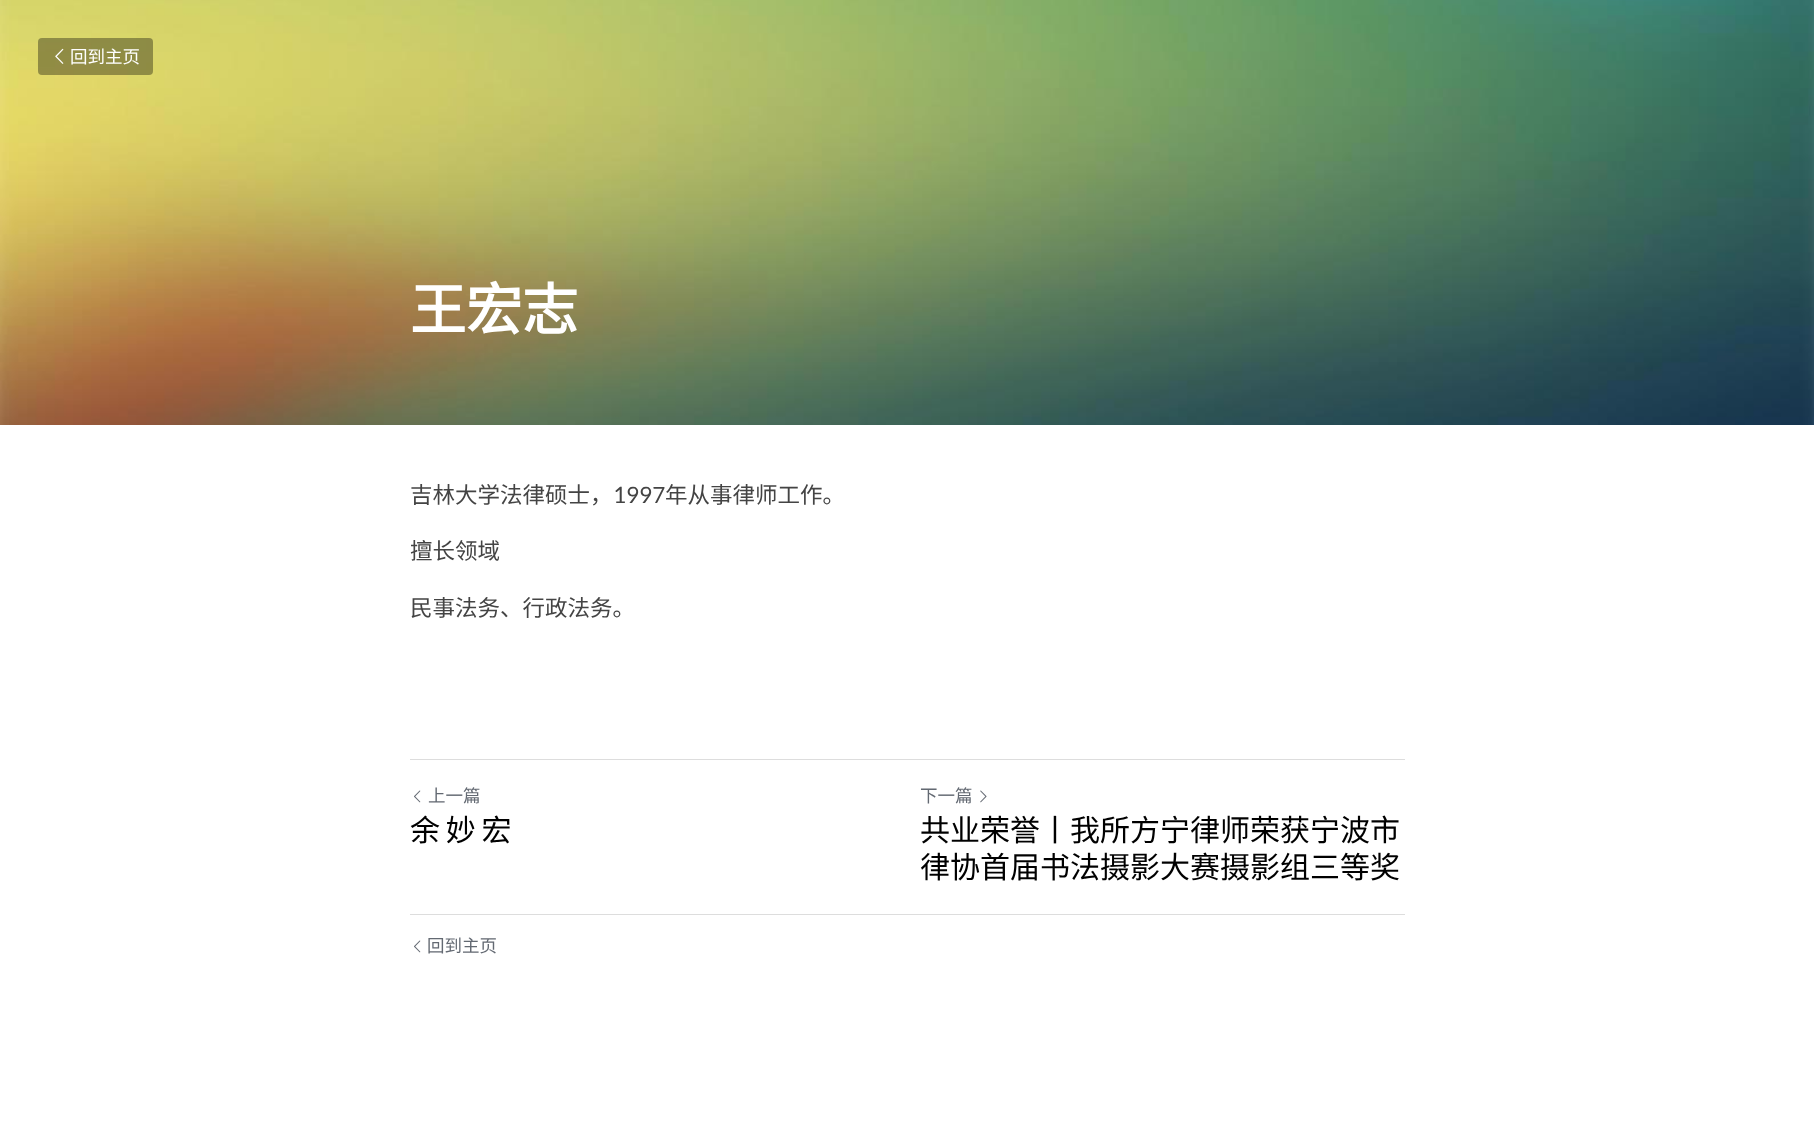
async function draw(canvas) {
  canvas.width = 1814
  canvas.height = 1139
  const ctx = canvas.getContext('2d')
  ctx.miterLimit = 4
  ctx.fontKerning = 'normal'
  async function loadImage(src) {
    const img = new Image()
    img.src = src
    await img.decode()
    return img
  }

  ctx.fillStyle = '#fff'
  ctx.fillRect(0, 0, 1814, 1139)
  ctx.drawImage(await loadImage('image0.png'), 0, 0, 1814, 425)
  ctx.fillStyle = '#00000059'
  ctx.beginPath()
  ctx.roundRect(38, 38, 115, 37, 4)
  ctx.fill()
  ctx.drawImage(await loadImage('image1.png'), 55, 48, 9, 16)
  ctx.font = '17.5px Noto Sans CJK SC'
  ctx.fillStyle = '#fff'
  ctx.fillText('回到主页', 70, 63)
  ctx.font = 'bold 56px Noto Sans CJK SC'
  ctx.fillText('王宏志', 410, 330)
  ctx.font = '22.5px Noto Sans CJK SC'
  ctx.fillStyle = '#444'
  ctx.fillText('吉林大学法律硕士，', 410, 503)
  ctx.font = '22.5px Lato'
  ctx.fillText('1997', 613, 503)
  ctx.font = '22.5px Noto Sans CJK SC'
  ctx.fillText('年从事律师工作。', 665, 503)
  ctx.fillText('擅长领域', 410, 559)
  ctx.fillText('民事法务、行政法务。', 410, 616)
  ctx.fillStyle = '#ddd'
  ctx.fillRect(410, 759, 995, 1)
  ctx.drawImage(await loadImage('image2.png'), 414, 790, 7, 13)
  ctx.font = '17.5px Noto Sans CJK SC'
  ctx.fillStyle = '#636972'
  ctx.fillText('上一篇', 428, 802)
  ctx.wordSpacing = '-1px'
  ctx.font = '30px Noto Sans CJK SC'
  ctx.fillStyle = '#000'
  ctx.fillText('余 妙 宏', 410, 841)
  ctx.wordSpacing = '0px'
  ctx.font = '17.5px Noto Sans CJK SC'
  ctx.fillStyle = '#636972'
  ctx.fillText('下一篇', 920, 802)
  ctx.drawImage(await loadImage('image3.png'), 980, 790, 7, 13)
  ctx.font = '30px Noto Sans CJK SC'
  ctx.fillStyle = '#000'
  ctx.fillText('共业荣誉丨我所方宁律师荣获宁波市', 920, 841)
  ctx.fillText('律协首届书法摄影大赛摄影组三等奖', 920, 878)
  ctx.fillStyle = '#ddd'
  ctx.fillRect(410, 914, 995, 1)
  ctx.drawImage(await loadImage('image2.png'), 414, 940, 7, 13)
  ctx.font = '17.5px Noto Sans CJK SC'
  ctx.fillStyle = '#636972'
  ctx.fillText('回到主页', 427, 952)
}

draw(document.querySelector('canvas'))
